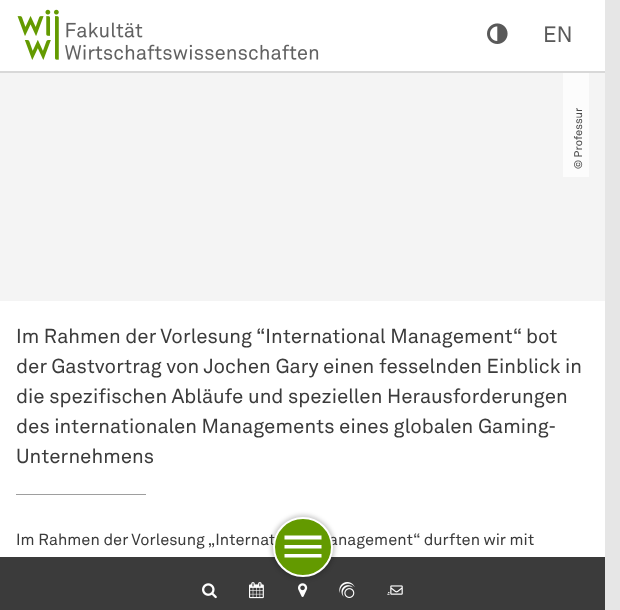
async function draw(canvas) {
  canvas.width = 620
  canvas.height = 610
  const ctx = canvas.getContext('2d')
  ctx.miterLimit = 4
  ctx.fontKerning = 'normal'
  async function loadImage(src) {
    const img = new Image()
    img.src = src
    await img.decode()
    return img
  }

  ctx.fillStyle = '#e6e6e6'
  ctx.fillRect(0, 0, 620, 610)
  ctx.fillStyle = '#fff'
  ctx.fillRect(0, 0, 605, 71)
  ctx.fillStyle = '#d8d8d8'
  ctx.fillRect(0, 71, 605, 2)
  ctx.drawImage(await loadImage('image0.png'), 17, 9, 302, 51)
  ctx.drawImage(await loadImage('image1.png'), 487, 23, 21, 21)
  ctx.drawImage(await loadImage('image2.png'), 545, 26, 26, 16)
  ctx.fillStyle = '#f4f4f4'
  ctx.fillRect(0, 73, 605, 228)
  ctx.fillStyle = '#fcfcfc'
  ctx.fillRect(563, 73, 26, 104)
  ctx.font = '11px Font'
  ctx.fillStyle = '#494949'
  ctx.save()
  ctx.translate(582, 169)
  ctx.rotate(-90 * Math.PI / 180)
  ctx.fillText('© Professur', 0, 0)
  ctx.restore()
  ctx.fillStyle = '#fff'
  ctx.fillRect(0, 301, 605, 256)
  ctx.font = '20px Font'
  ctx.fillStyle = '#3b3b3b'
  ctx.fillText('Im Rahmen der Vorlesung “International Management“ bot', 16, 343)
  ctx.fillText('der Gastvortrag von Jochen Gary einen fesselnden Einblick in', 16, 373)
  ctx.fillText('die spezifischen Abläufe und speziellen Herausforderungen', 16, 403)
  ctx.fillText('des internationalen Managements eines globalen Gaming-', 16, 433)
  ctx.fillText('Unternehmens', 16, 463)
  ctx.fillStyle = '#9e9e9e'
  ctx.fillRect(16, 494, 130, 1)
  ctx.font = '16px Font'
  ctx.fillStyle = '#3b3b3b'
  ctx.fillText('Im Rahmen der Vorlesung „Internat', 16, 545)
  ctx.fillText('anagement“ durften wir mit', 329, 545)
  ctx.fillRect(0, 557, 605, 53)
  ctx.drawImage(await loadImage('image5.png'), 298, 583, 10, 14)
  ctx.drawImage(await loadImage('image6.png'), 339, 582, 16, 16)
  ctx.fillStyle = '#00000033'
  ctx.filter = 'blur(2px)'
  ctx.beginPath()
  ctx.roundRect(271, 515, 64, 64, 32)
  ctx.fill()
  ctx.filter = 'none'
  ctx.fillStyle = '#639a00'
  ctx.beginPath()
  ctx.arc(303, 547, 29, 0, 2 * Math.PI)
  ctx.fill()
  ctx.strokeStyle = '#fff'
  ctx.lineWidth = 2
  ctx.stroke()
  ctx.fillStyle = '#fff'
  ctx.beginPath()
  ctx.moveTo(284.5, 535.5)
  ctx.lineTo(321.5, 535.5)
  ctx.lineTo(321.5, 539.5)
  ctx.lineTo(284.5, 539.5)
  ctx.closePath()
  ctx.moveTo(284.5, 545)
  ctx.lineTo(321.5, 545)
  ctx.lineTo(321.5, 548.5)
  ctx.lineTo(284.5, 548.5)
  ctx.closePath()
  ctx.moveTo(284.5, 554)
  ctx.lineTo(321.5, 554)
  ctx.lineTo(321.5, 557.5)
  ctx.lineTo(284.5, 557.5)
  ctx.closePath()
  ctx.fill()
  ctx.drawImage(await loadImage('image3.png'), 202, 583, 15, 16)
  ctx.drawImage(await loadImage('image4.png'), 249, 582, 15, 17)
  ctx.drawImage(await loadImage('image7.png'), 387, 585, 16, 10)
}

draw(document.querySelector('canvas'))
